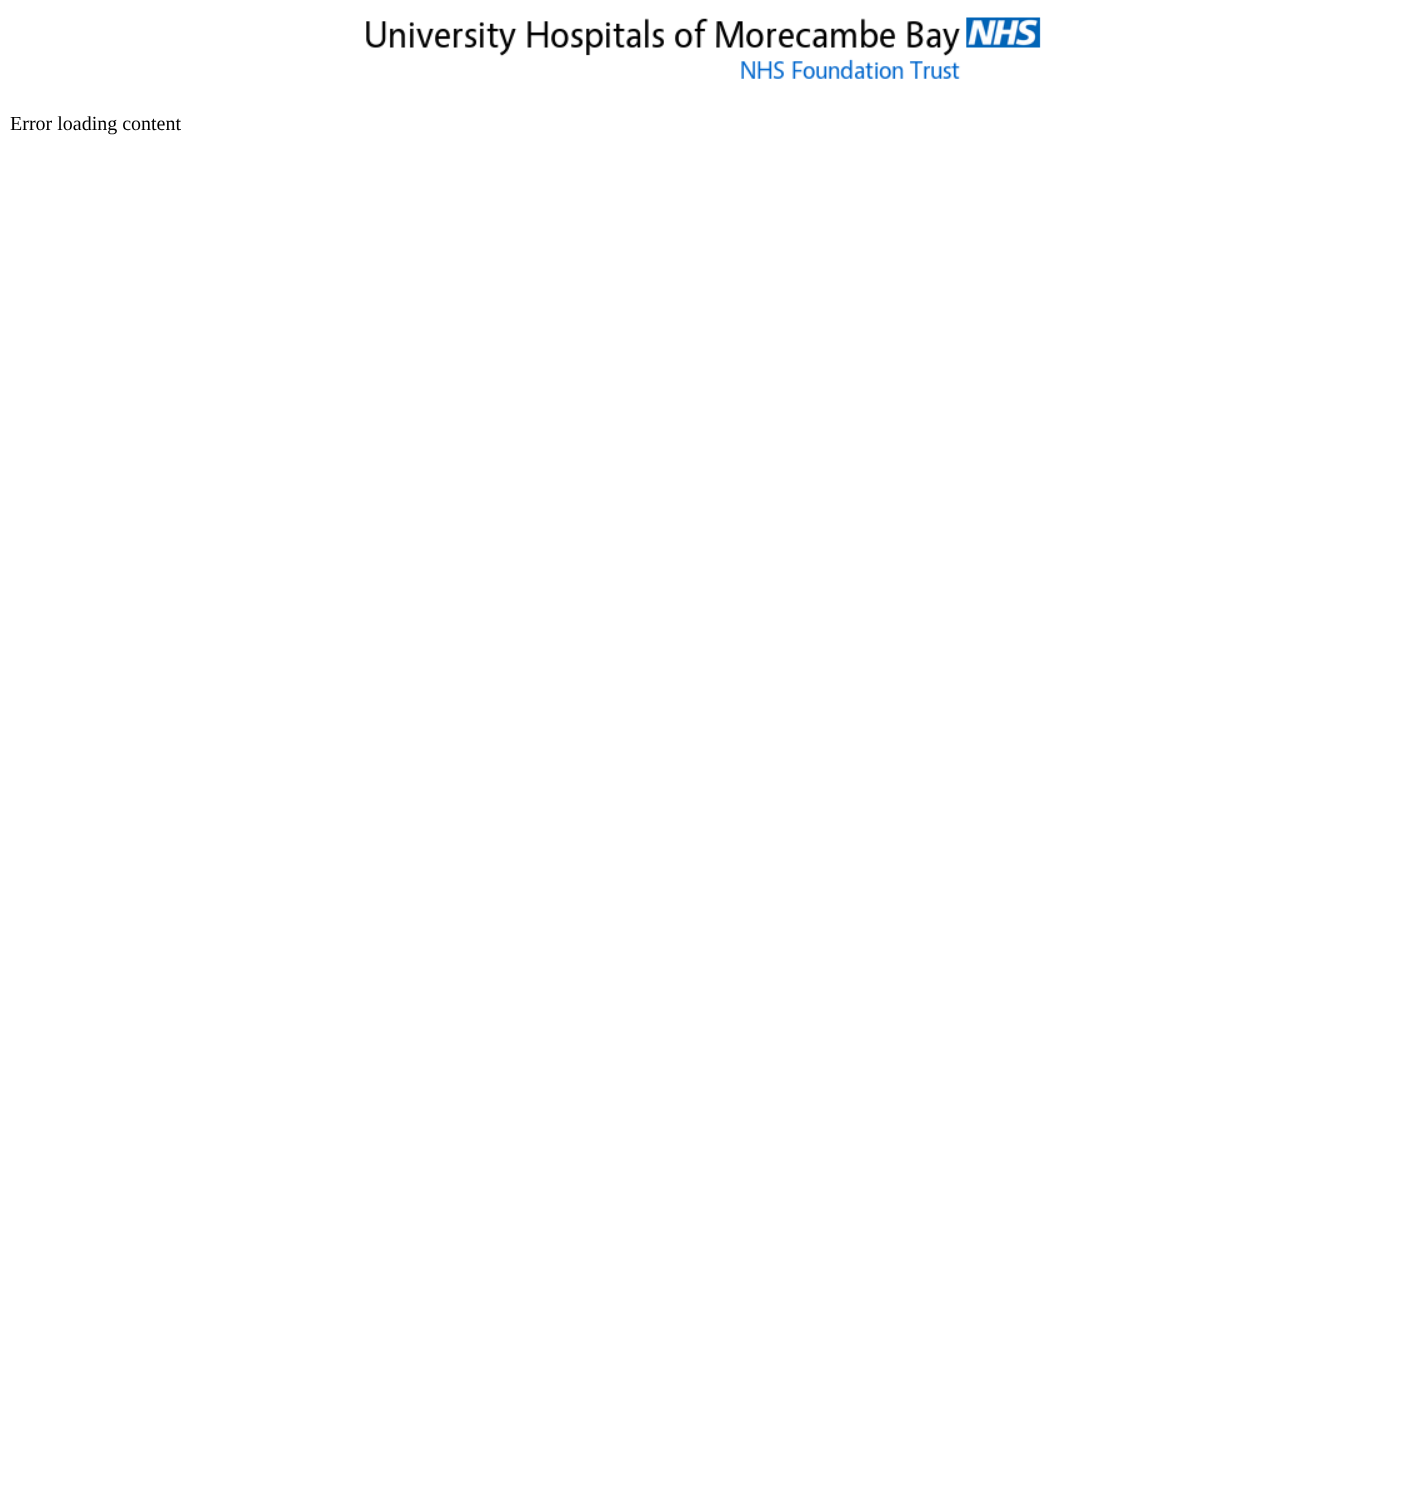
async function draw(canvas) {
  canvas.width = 1403
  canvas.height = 1501
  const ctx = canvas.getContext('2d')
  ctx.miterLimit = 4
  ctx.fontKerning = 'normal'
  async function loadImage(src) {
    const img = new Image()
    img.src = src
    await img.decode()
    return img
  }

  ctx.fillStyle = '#fff'
  ctx.fillRect(0, 0, 1403, 1501)
  ctx.drawImage(await loadImage('image0.png'), 366, 17, 675, 62)
  ctx.font = '20px Liberation Serif'
  ctx.fillStyle = '#000'
  ctx.fillText('Error loading content', 10, 130)
}

draw(document.querySelector('canvas'))
